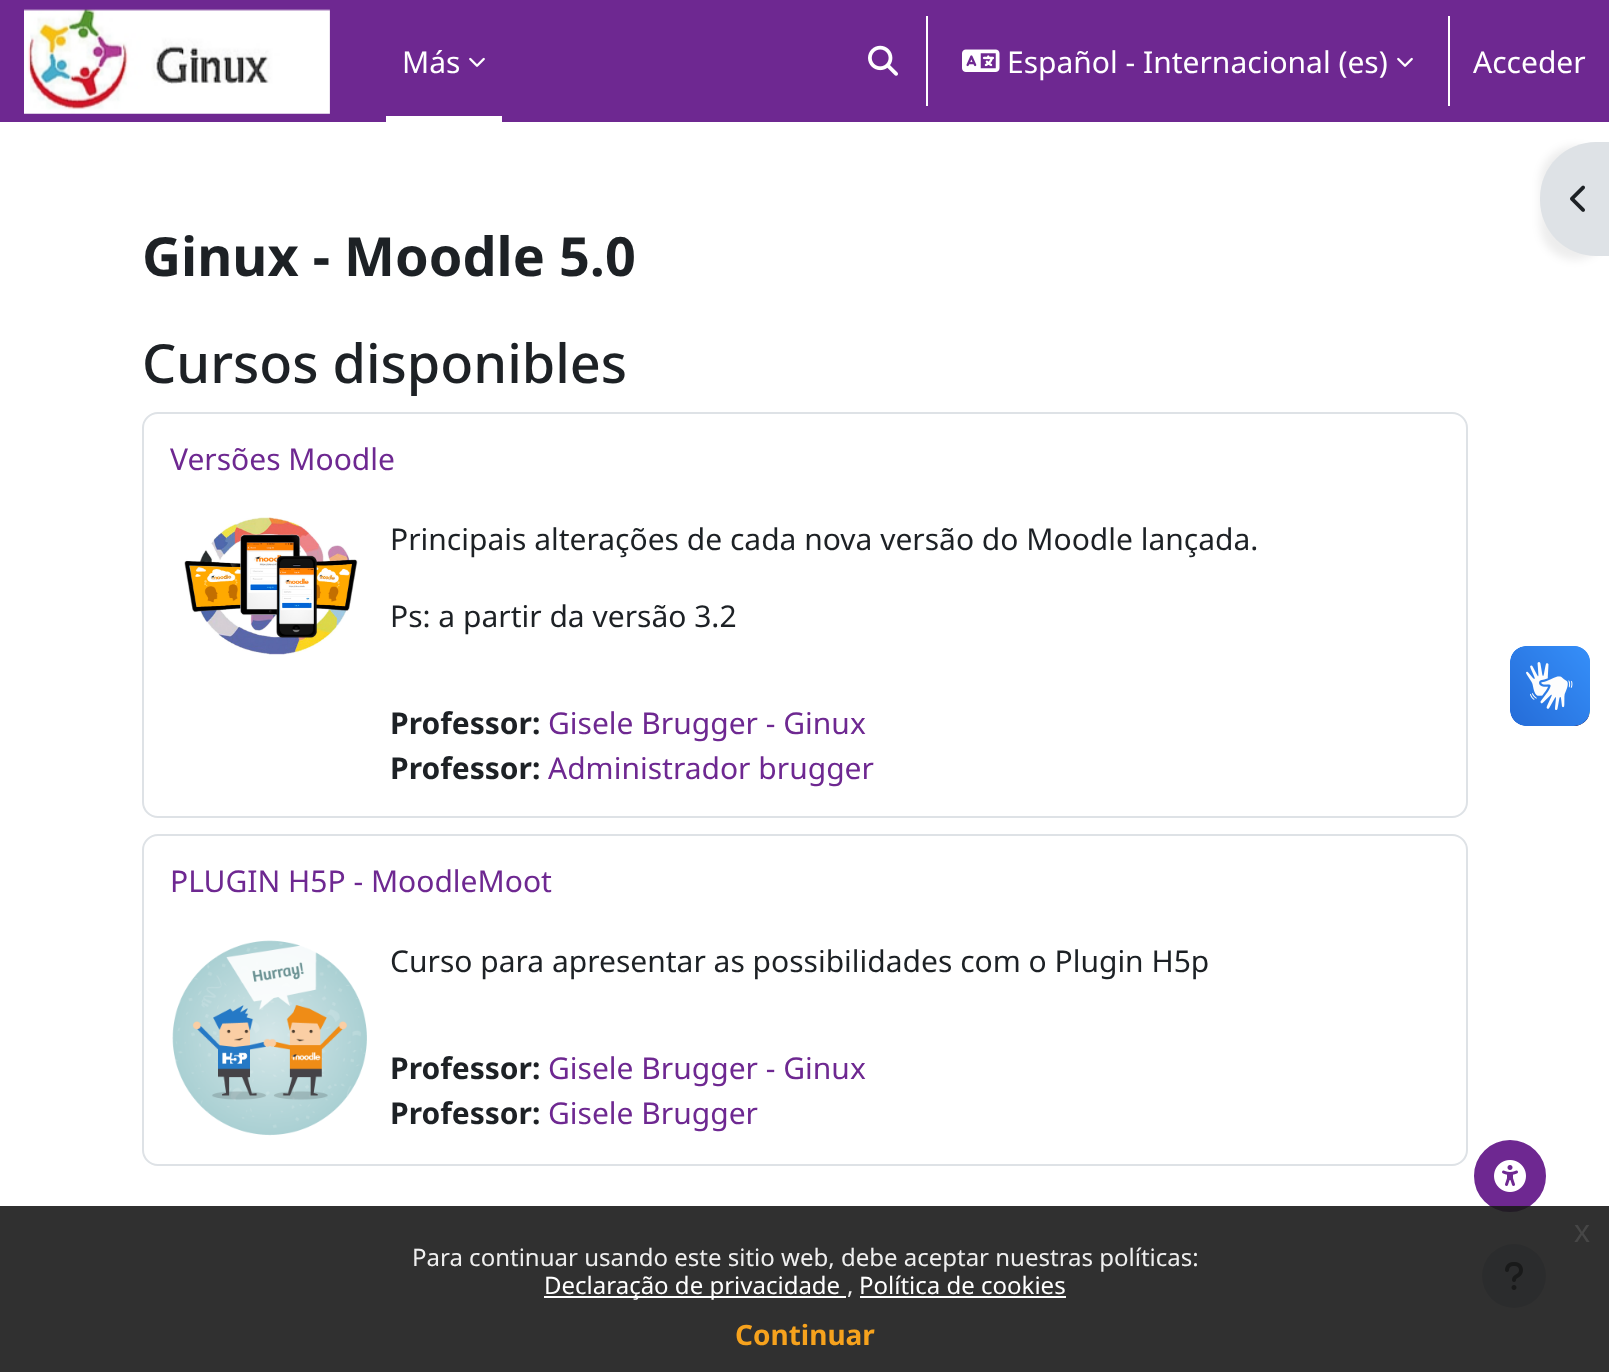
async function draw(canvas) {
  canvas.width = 1609
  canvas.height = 1372
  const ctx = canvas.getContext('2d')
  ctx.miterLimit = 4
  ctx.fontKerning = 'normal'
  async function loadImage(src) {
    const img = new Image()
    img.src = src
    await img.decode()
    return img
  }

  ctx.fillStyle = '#fff'
  ctx.fillRect(0, 0, 1609, 1372)
  ctx.fillStyle = '#6e2891'
  ctx.fillRect(0, 0, 1609, 122)
  ctx.drawImage(await loadImage('image0.png'), 24, 9, 306, 105)
  ctx.fillStyle = '#fff'
  ctx.fillRect(386, 116, 116, 6)
  ctx.font = '30px Noto Sans'
  ctx.fillText('Más', 402, 73)
  ctx.drawImage(await loadImage('image1.png'), 469, 57, 16, 10)
  ctx.drawImage(await loadImage('image2.png'), 868, 45, 30, 31)
  ctx.fillRect(926, 16, 2, 90)
  ctx.drawImage(await loadImage('image3.png'), 962, 49, 38, 23)
  ctx.fillText('Español - Internacional (es)', 1007, 73)
  ctx.drawImage(await loadImage('image1.png'), 1397, 57, 16, 10)
  ctx.fillRect(1448, 16, 2, 90)
  ctx.fillText('Acceder', 1473, 73)
  ctx.font = 'bold 54px Noto Sans'
  ctx.fillStyle = '#1d2125'
  ctx.fillText('Ginux - Moodle 5.0', 142, 276)
  ctx.fillStyle = '#00000012'
  ctx.filter = 'blur(4px)'
  ctx.beginPath()
  ctx.roundRect(1540, 146, 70, 114, 56)
  ctx.fill()
  ctx.filter = 'none'
  ctx.fillStyle = '#dee2e6'
  ctx.beginPath()
  ctx.moveTo(1596, 142)
  ctx.lineTo(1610, 142)
  ctx.lineTo(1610, 256)
  ctx.lineTo(1596, 256)
  ctx.bezierCurveTo(1565, 256, 1540, 231, 1540, 200)
  ctx.lineTo(1540, 198)
  ctx.bezierCurveTo(1540, 167, 1565, 142, 1596, 142)
  ctx.closePath()
  ctx.fill()
  ctx.drawImage(await loadImage('image4.png'), 1570, 185, 15, 27)
  ctx.font = '500 54px Noto Sans'
  ctx.fillStyle = '#1d2125'
  ctx.fillText('Cursos disponibles', 142, 383)
  ctx.beginPath()
  ctx.roundRect(143, 413, 1324, 404, 15)
  ctx.strokeStyle = '#dee2e6'
  ctx.lineWidth = 2
  ctx.stroke()
  ctx.font = '30px Noto Sans'
  ctx.fillStyle = '#6e2891'
  ctx.fillText('Versões Moodle', 170, 470)
  ctx.drawImage(await loadImage('image5.png'), 184, 517, 174, 138)
  ctx.fillStyle = '#1d2125'
  ctx.fillText('Principais alterações de cada nova versão do Moodle lançada.', 390, 550)
  ctx.fillText('Ps: a partir da versão 3.2', 390, 627)
  ctx.font = 'bold 30px Noto Sans'
  ctx.fillText('Professor:', 390, 734)
  ctx.font = '30px Noto Sans'
  ctx.fillStyle = '#6e2891'
  ctx.fillText('Gisele Brugger - Ginux', 548, 734)
  ctx.font = 'bold 30px Noto Sans'
  ctx.fillStyle = '#1d2125'
  ctx.fillText('Professor:', 390, 779)
  ctx.font = '30px Noto Sans'
  ctx.fillStyle = '#6e2891'
  ctx.fillText('Administrador brugger', 548, 779)
  ctx.beginPath()
  ctx.roundRect(143, 835, 1324, 330, 15)
  ctx.stroke()
  ctx.fillText('PLUGIN H5P - MoodleMoot', 170, 892)
  ctx.drawImage(await loadImage('image6.png'), 172, 940, 195, 196)
  ctx.fillStyle = '#1d2125'
  ctx.fillText('Curso para apresentar as possibilidades com o Plugin H5p', 390, 972)
  ctx.font = 'bold 30px Noto Sans'
  ctx.fillText('Professor:', 390, 1079)
  ctx.font = '30px Noto Sans'
  ctx.fillStyle = '#6e2891'
  ctx.fillText('Gisele Brugger - Ginux', 548, 1079)
  ctx.font = 'bold 30px Noto Sans'
  ctx.fillStyle = '#1d2125'
  ctx.fillText('Professor:', 390, 1124)
  ctx.font = '30px Noto Sans'
  ctx.fillStyle = '#6e2891'
  ctx.fillText('Gisele Brugger', 548, 1124)
  ctx.beginPath()
  ctx.arc(1510, 1176, 35, 0, 2 * Math.PI)
  ctx.fill()
  ctx.strokeStyle = '#6e2891'
  ctx.stroke()
  ctx.drawImage(await loadImage('image7.png'), 1494, 1160, 32, 32)
  ctx.fillStyle = '#ced4da'
  ctx.beginPath()
  ctx.arc(1514, 1276, 32, 0, 2 * Math.PI)
  ctx.fill()
  ctx.drawImage(await loadImage('image8.png'), 1505, 1262, 18, 28)
  ctx.drawImage(await loadImage('image9.png'), 1510, 646, 80, 80)
  ctx.drawImage(await loadImage('image10.png'), 1510, 646, 80, 80)
  ctx.fillStyle = '#191919e6'
  ctx.fillRect(0, 1206, 1609, 166)
  ctx.font = '32px Liberation Sans'
  ctx.fillStyle = '#474747'
  ctx.fillText('x', 1574, 1242)
  ctx.font = '24px Noto Sans'
  ctx.fillStyle = '#efefef'
  ctx.fillText('Para continuar usando este sitio web, debe aceptar nuestras políticas:', 412, 1266)
  ctx.fillStyle = '#fff'
  ctx.fillRect(544, 1296, 302, 2)
  ctx.fillText('Declaração de privacidade', 544, 1294)
  ctx.fillStyle = '#efefef'
  ctx.fillText(',', 847, 1294)
  ctx.fillStyle = '#fff'
  ctx.fillRect(860, 1296, 206, 2)
  ctx.fillText('Política de cookies', 859, 1294)
  ctx.font = 'bold 28px Noto Sans'
  ctx.fillStyle = '#f6a21d'
  ctx.fillText('Continuar', 735, 1345)
}

draw(document.querySelector('canvas'))
